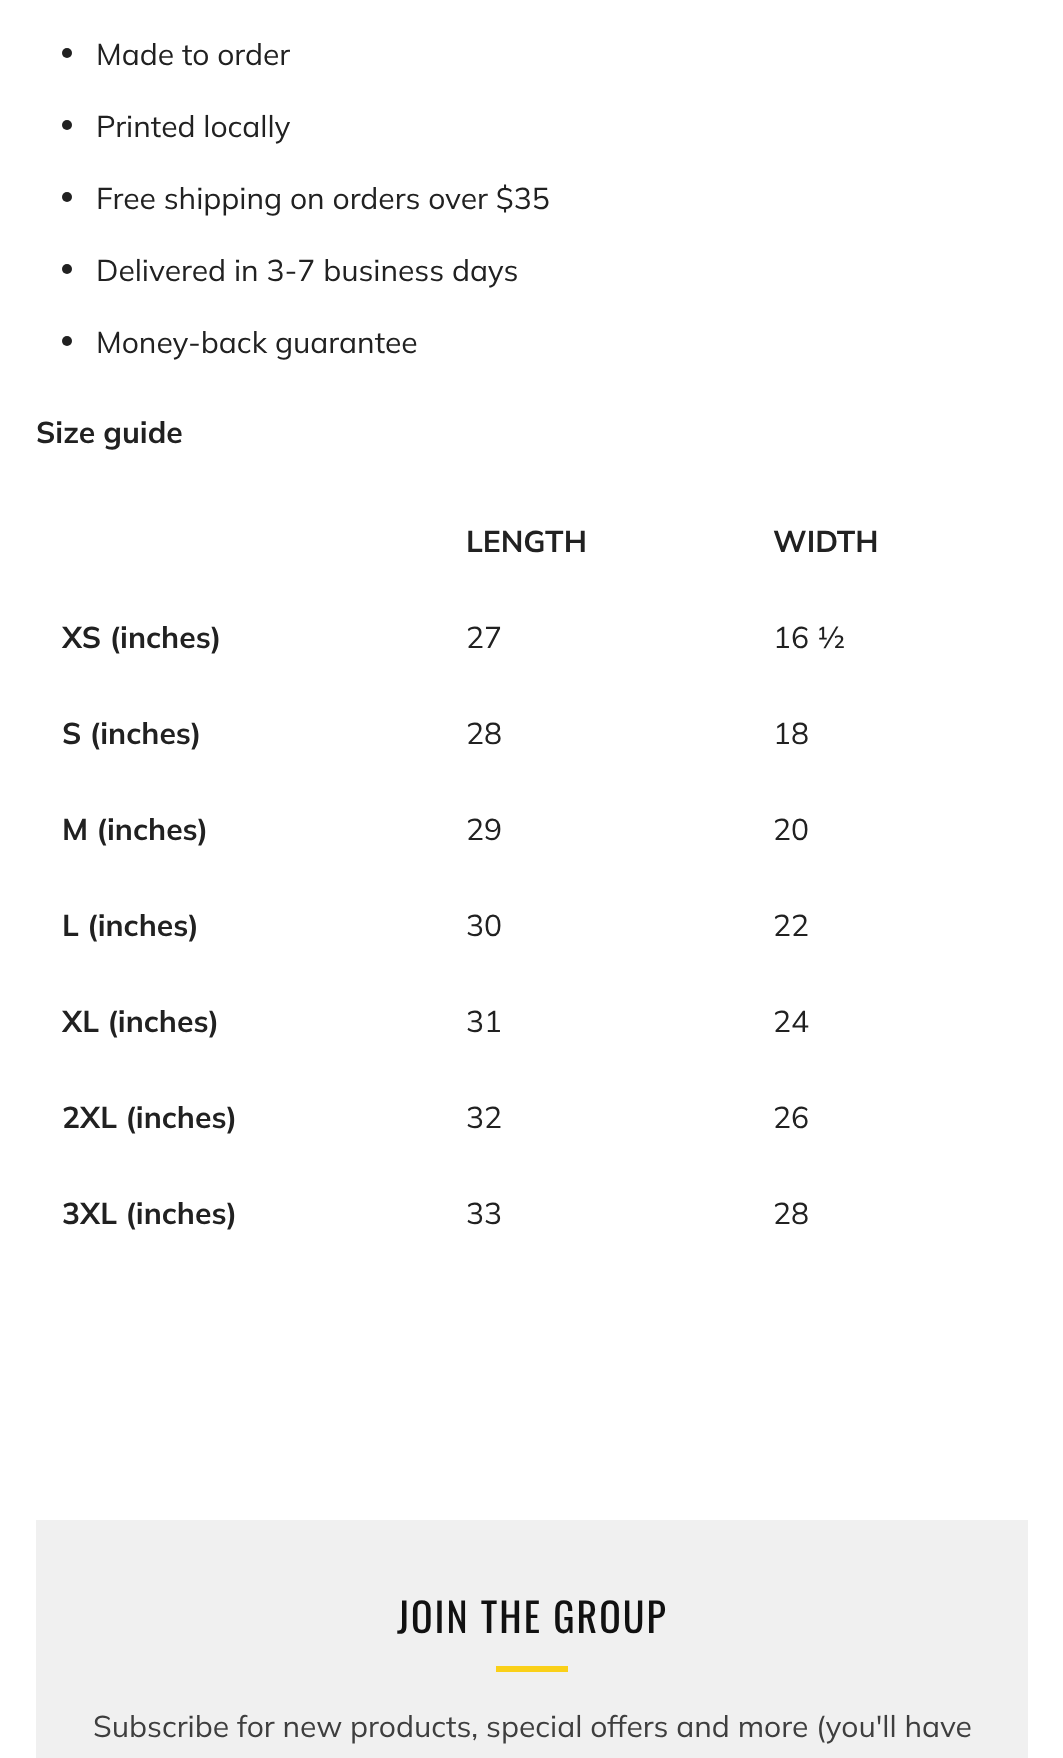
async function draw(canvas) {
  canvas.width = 1063
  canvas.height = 1758
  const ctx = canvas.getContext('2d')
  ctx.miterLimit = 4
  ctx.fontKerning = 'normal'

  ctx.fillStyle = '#fff'
  ctx.fillRect(0, 0, 1063, 1758)
  ctx.fillStyle = '#212121'
  ctx.beginPath()
  ctx.arc(67, 53, 5, 0, 2 * Math.PI)
  ctx.fill()
  ctx.font = '30px Muli'
  ctx.fillText('Made to order', 96, 65)
  ctx.beginPath()
  ctx.arc(67, 125, 5, 0, 2 * Math.PI)
  ctx.fill()
  ctx.fillText('Printed locally', 96, 137)
  ctx.beginPath()
  ctx.arc(67, 197, 5, 0, 2 * Math.PI)
  ctx.fill()
  ctx.fillText('Free shipping on orders over $35', 96, 209)
  ctx.beginPath()
  ctx.arc(67, 269, 5, 0, 2 * Math.PI)
  ctx.fill()
  ctx.fillText('Delivered in 3-7 business days', 96, 281)
  ctx.beginPath()
  ctx.arc(67, 341, 5, 0, 2 * Math.PI)
  ctx.fill()
  ctx.fillText('Money-back guarantee', 96, 353)
  ctx.font = 'bold 30px Muli'
  ctx.fillText('Size guide', 36, 443)
  ctx.fillText('LENGTH', 466, 552)
  ctx.fillText('WIDTH', 773, 552)
  ctx.fillText('XS (inches)', 62, 648)
  ctx.font = '30px Muli'
  ctx.fillText('27', 466, 648)
  ctx.fillText('16 ½', 773, 648)
  ctx.font = 'bold 30px Muli'
  ctx.fillText('S (inches)', 62, 744)
  ctx.font = '30px Muli'
  ctx.fillText('28', 466, 744)
  ctx.fillText('18', 773, 744)
  ctx.font = 'bold 30px Muli'
  ctx.fillText('M (inches)', 62, 840)
  ctx.font = '30px Muli'
  ctx.fillText('29', 466, 840)
  ctx.fillText('20', 773, 840)
  ctx.font = 'bold 30px Muli'
  ctx.fillText('L (inches)', 62, 936)
  ctx.font = '30px Muli'
  ctx.fillText('30', 466, 936)
  ctx.fillText('22', 773, 936)
  ctx.font = 'bold 30px Muli'
  ctx.fillText('XL (inches)', 62, 1032)
  ctx.font = '30px Muli'
  ctx.fillText('31', 466, 1032)
  ctx.fillText('24', 773, 1032)
  ctx.font = 'bold 30px Muli'
  ctx.fillText('2XL (inches)', 62, 1128)
  ctx.font = '30px Muli'
  ctx.fillText('32', 466, 1128)
  ctx.fillText('26', 773, 1128)
  ctx.font = 'bold 30px Muli'
  ctx.fillText('3XL (inches)', 62, 1224)
  ctx.font = '30px Muli'
  ctx.fillText('33', 466, 1224)
  ctx.fillText('28', 773, 1224)
  ctx.fillStyle = '#f0f0f0'
  ctx.fillRect(36, 1520, 992, 238)
  ctx.letterSpacing = '2px'
  ctx.font = '40px Oswald'
  ctx.fillStyle = '#111'
  ctx.fillText('JOIN THE GROUP', 397, 1633)
  ctx.fillStyle = '#fad018'
  ctx.fillRect(496, 1666, 72, 6)
  ctx.letterSpacing = '0px'
  ctx.font = '30px Muli'
  ctx.fillStyle = '#3e3e3e'
  ctx.fillText('Subscribe for new products, special offers and more (you\'ll have', 93, 1737)
}

draw(document.querySelector('canvas'))
